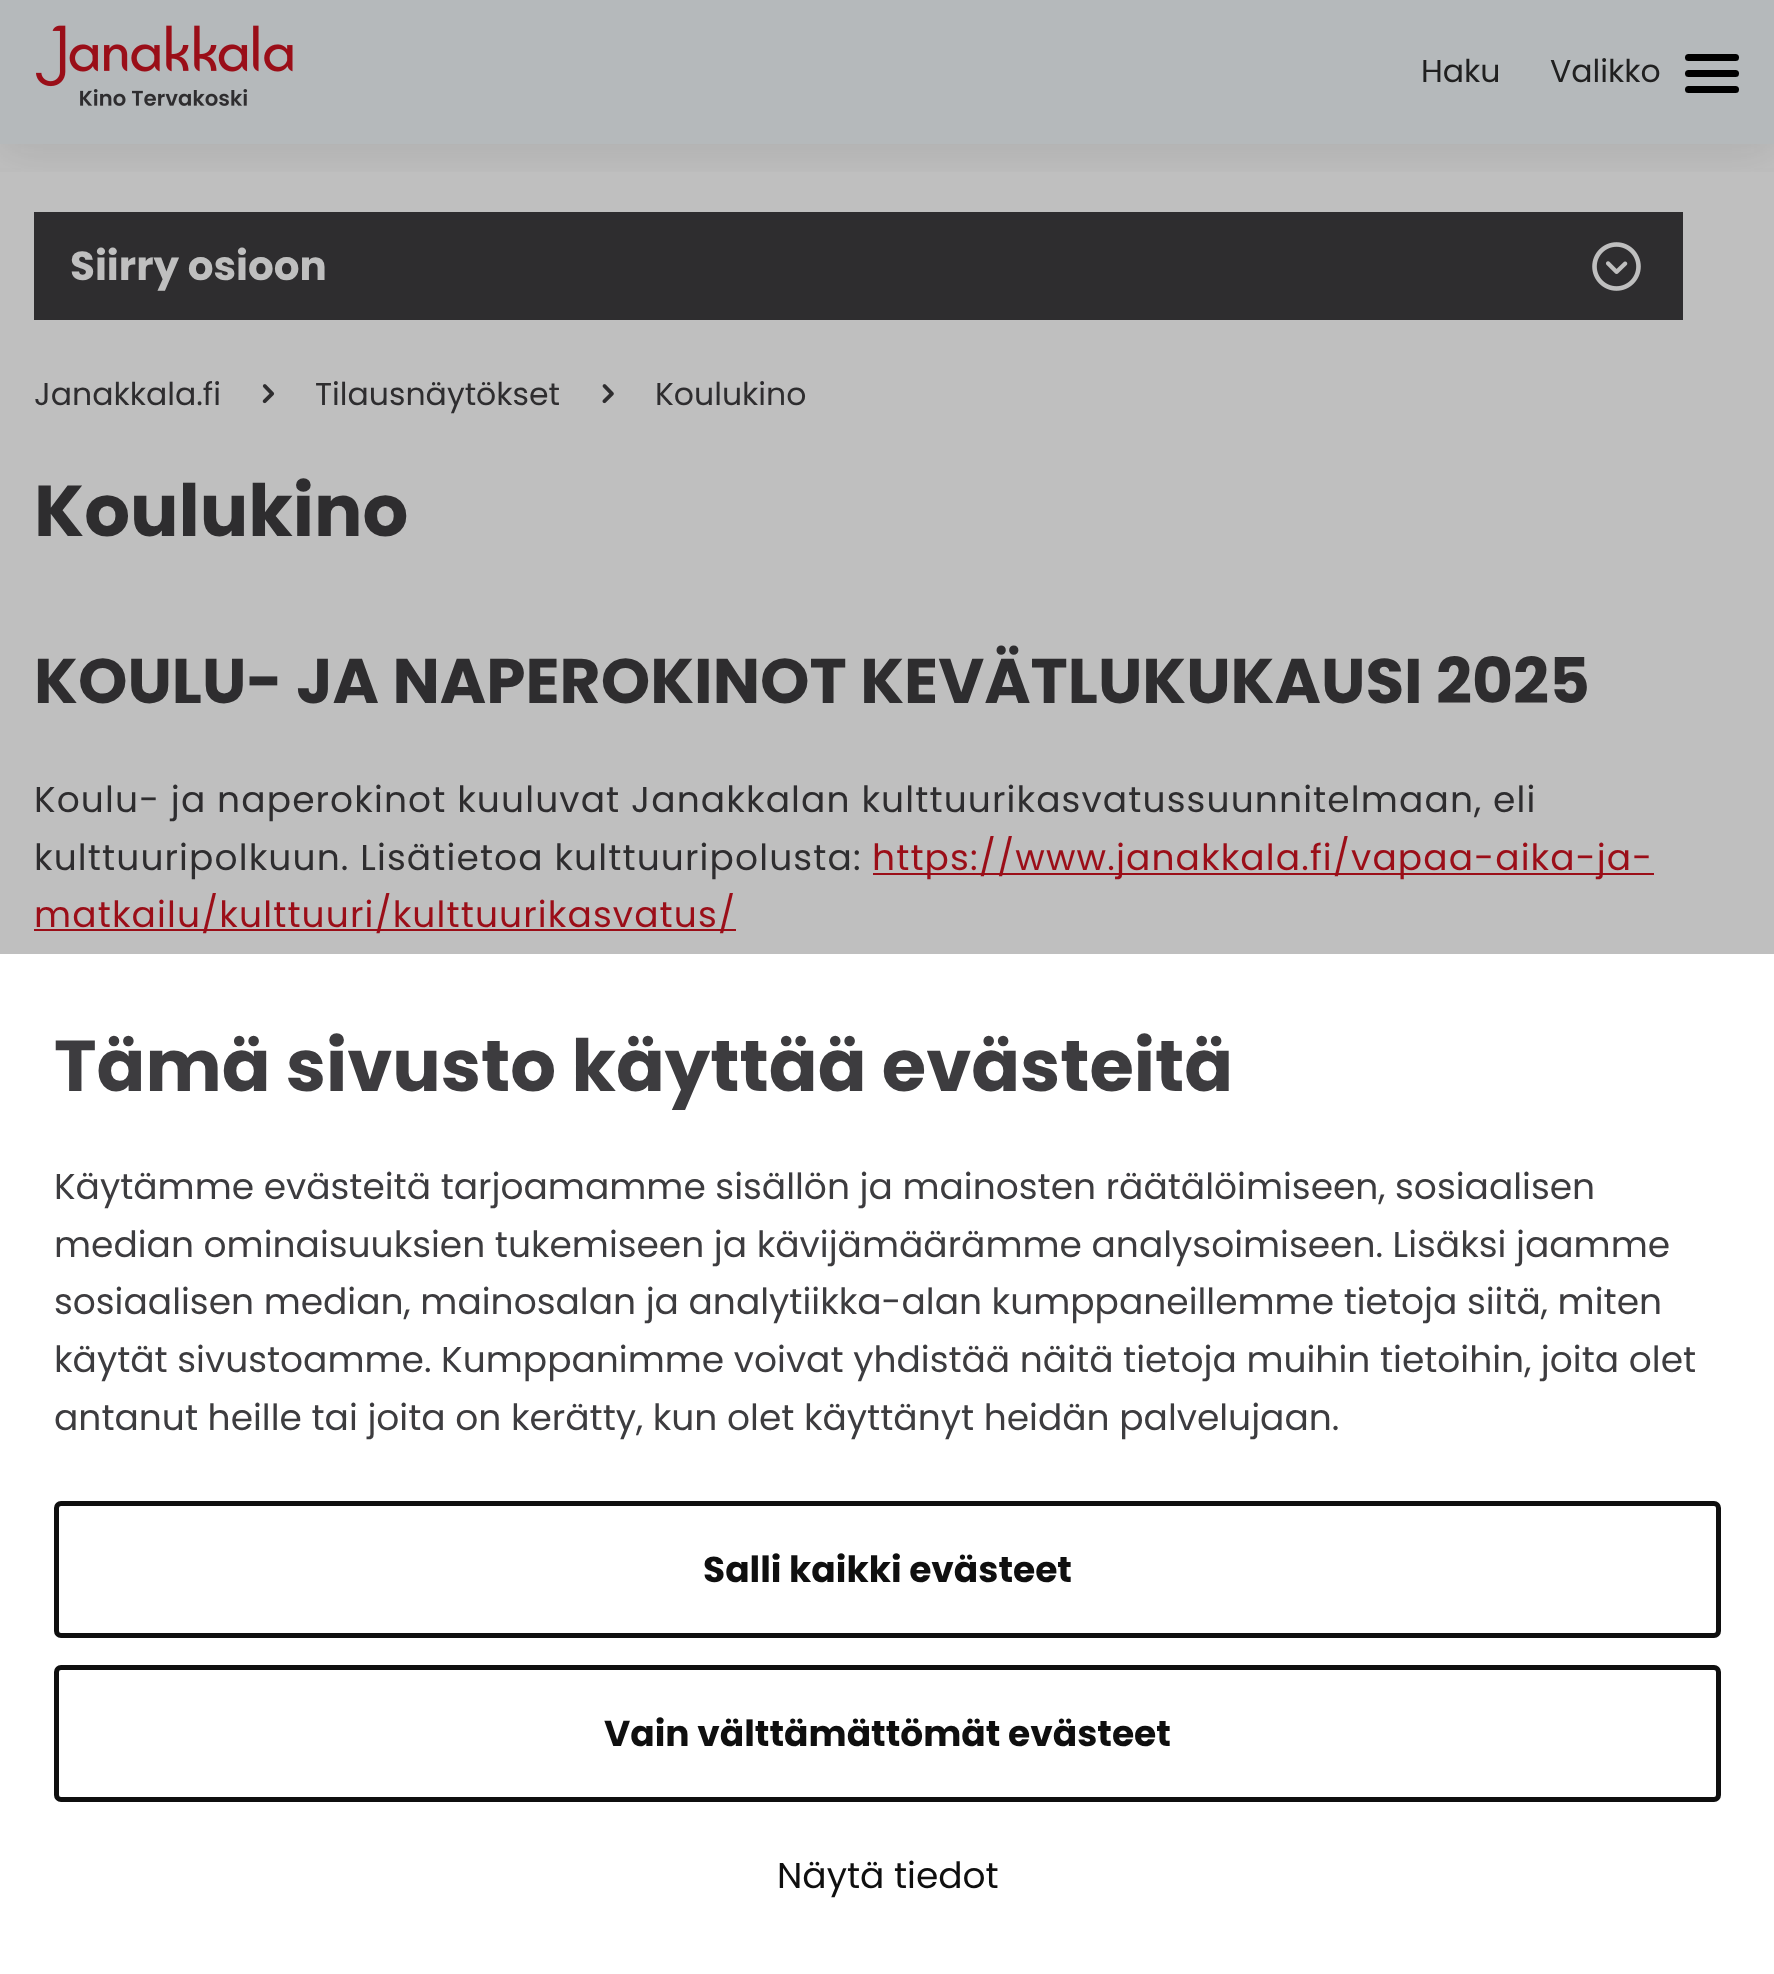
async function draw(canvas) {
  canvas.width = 1774
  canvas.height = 1974
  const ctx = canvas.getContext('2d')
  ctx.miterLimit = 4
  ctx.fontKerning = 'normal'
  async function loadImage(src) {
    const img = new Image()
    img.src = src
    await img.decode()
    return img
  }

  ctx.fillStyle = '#bfbfbf'
  ctx.fillRect(0, 0, 1774, 1974)
  ctx.fillStyle = '#b5b9bb'
  ctx.fillRect(0, 0, 1774, 144)
  ctx.fillStyle = '#2e2d2f'
  ctx.fillRect(34, 212, 1649, 108)
  ctx.save()
  ctx.beginPath()
  ctx.rect(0, 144, 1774, 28)
  ctx.clip()
  ctx.fillStyle = '#2222221a'
  ctx.filter = 'blur(22.5px)'
  ctx.beginPath()
  ctx.rect(0, 9, 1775, 144)
  ctx.fill()
  ctx.filter = 'none'
  ctx.restore()
  ctx.drawImage(await loadImage('image0.png'), 36, 25, 257, 81)
  ctx.font = '31.5px Poppins'
  ctx.fillStyle = '#202020'
  ctx.fillText('Haku', 1421, 82)
  ctx.fillText('Valikko', 1550, 82)
  ctx.fillStyle = '#000'
  ctx.beginPath()
  ctx.roundRect(1685, 70, 54, 7, 3.5)
  ctx.fill()
  ctx.beginPath()
  ctx.roundRect(1685, 54, 54, 7, 3.5)
  ctx.fill()
  ctx.beginPath()
  ctx.roundRect(1685, 86, 54, 7, 3.5)
  ctx.fill()
  ctx.font = 'bold 40.5px Poppins'
  ctx.fillStyle = '#bfbfbf'
  ctx.fillText('Siirry osioon', 70, 280)
  ctx.drawImage(await loadImage('image1.png'), 1592, 242, 49, 49)
  ctx.font = '31.5px Poppins'
  ctx.fillStyle = '#2e2d2f'
  ctx.fillText('Janakkala.fi', 34, 405)
  ctx.drawImage(await loadImage('image2.png'), 262, 384, 13, 20)
  ctx.fillText('Tilausnäytökset', 315, 405)
  ctx.drawImage(await loadImage('image3.png'), 602, 384, 12, 20)
  ctx.fillText('Koulukino', 655, 405)
  ctx.font = 'bold 72px Poppins'
  ctx.fillText('Koulukino', 34, 536)
  ctx.font = 'bold 63px Poppins'
  ctx.fillText('KOULU- JA NAPEROKINOT KEVÄTLUKUKAUSI 2025', 34, 703)
  ctx.letterSpacing = '1.12px'
  ctx.font = '36px Poppins'
  ctx.fillText('Koulu- ja naperokinot kuuluvat Janakkalan kulttuurikasvatussuunnitelmaan, eli', 34, 812)
  ctx.fillText('kulttuuripolkuun. Lisätietoa kulttuuripolusta:', 34, 870)
  ctx.fillStyle = '#9b0e18'
  ctx.fillRect(873, 873, 781, 2)
  ctx.fillText('https://www.janakkala.fi/vapaa-aika-ja-', 872, 870)
  ctx.fillRect(34, 929, 702, 2)
  ctx.fillText('matkailu/kulttuuri/kulttuurikasvatus/', 34, 927)
  ctx.fillStyle = '#fff'
  ctx.fillRect(0, 954, 1774, 1020)
  ctx.letterSpacing = '0px'
  ctx.font = 'bold 72px Poppins'
  ctx.fillStyle = '#3d3c3f'
  ctx.fillText('Tämä sivusto käyttää evästeitä', 54, 1091)
  ctx.font = '36px Poppins'
  ctx.fillText('Käytämme evästeitä tarjoamamme sisällön ja mainosten räätälöimiseen, sosiaalisen', 54, 1199)
  ctx.fillText('median ominaisuuksien tukemiseen ja kävijämäärämme analysoimiseen. Lisäksi jaamme', 54, 1257)
  ctx.fillText('sosiaalisen median, mainosalan ja analytiikka-alan kumppaneillemme tietoja siitä, miten', 54, 1314)
  ctx.fillText('käytät sivustoamme. Kumppanimme voivat yhdistää näitä tietoja muihin tietoihin, joita olet', 54, 1372)
  ctx.fillText('antanut heille tai joita on kerätty, kun olet käyttänyt heidän palvelujaan.', 54, 1430)
  ctx.beginPath()
  ctx.roundRect(56.5, 1503.5, 1662, 132, 4.5)
  ctx.strokeStyle = '#0f0f0f'
  ctx.lineWidth = 5
  ctx.stroke()
  ctx.font = 'bold 36px Poppins'
  ctx.fillStyle = '#0f0f0f'
  ctx.fillText('Salli kaikki evästeet', 703, 1582)
  ctx.beginPath()
  ctx.roundRect(56.5, 1667.5, 1662, 132, 4.5)
  ctx.stroke()
  ctx.fillText('Vain välttämättömät evästeet', 604, 1746)
  ctx.font = '36px Poppins'
  ctx.fillText('Näytä tiedot', 777, 1888)
}

draw(document.querySelector('canvas'))
